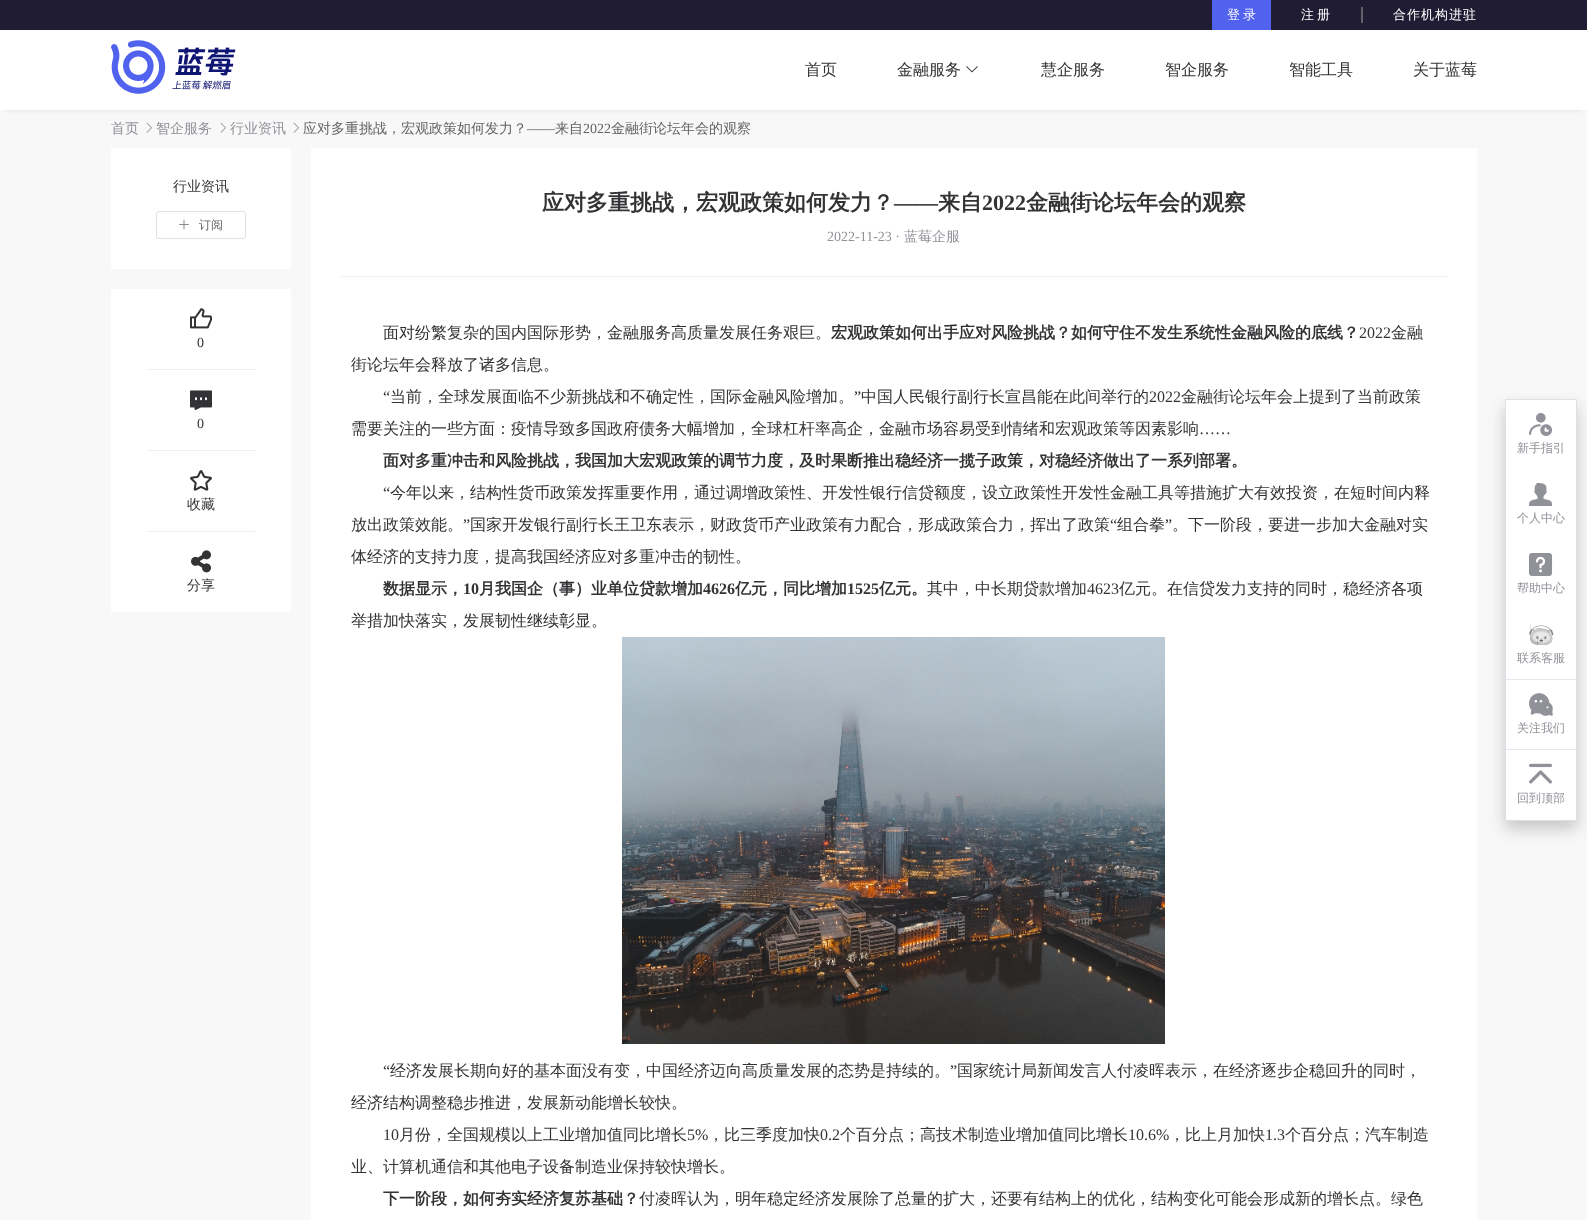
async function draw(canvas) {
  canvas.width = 1587
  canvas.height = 1220
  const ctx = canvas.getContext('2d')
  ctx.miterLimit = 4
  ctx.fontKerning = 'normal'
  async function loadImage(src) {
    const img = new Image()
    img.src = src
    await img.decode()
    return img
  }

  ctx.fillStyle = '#f8f8f8'
  ctx.fillRect(0, 0, 1587, 1220)
  ctx.fillStyle = '#0000001a'
  ctx.filter = 'blur(2.5px)'
  ctx.beginPath()
  ctx.rect(5, 10, 1577, 100)
  ctx.fill()
  ctx.filter = 'none'
  ctx.fillStyle = '#fff'
  ctx.fillRect(0, 30, 1587, 80)
  ctx.fillStyle = '#1f1c34'
  ctx.fillRect(0, 0, 1587, 30)
  ctx.fillStyle = '#5062ee'
  ctx.fillRect(1212, 0, 59, 30)
  ctx.wordSpacing = '-1px'
  ctx.font = '500 13px WenQuanYi Zen Hei'
  ctx.fillStyle = '#fff'
  ctx.fillText('登 录', 1227, 19)
  ctx.fillText('注 册', 1301, 19)
  ctx.fillStyle = '#626267'
  ctx.fillRect(1361, 7, 2, 16)
  ctx.letterSpacing = '1px'
  ctx.wordSpacing = '0px'
  ctx.fillStyle = '#fff'
  ctx.fillText('合作机构进驻', 1393, 19)
  ctx.drawImage(await loadImage('image0.png'), 111, 40, 125, 54)
  ctx.letterSpacing = '0px'
  ctx.font = '500 16px WenQuanYi Zen Hei'
  ctx.fillStyle = '#333336'
  ctx.fillText('首页', 805, 75)
  ctx.fillText('金融服务', 897, 75)
  ctx.drawImage(await loadImage('image1.png'), 966, 66, 12, 7)
  ctx.fillText('慧企服务', 1041, 75)
  ctx.fillText('智企服务', 1165, 75)
  ctx.fillText('智能工具', 1289, 75)
  ctx.fillText('关于蓝莓', 1413, 75)
  ctx.font = '500 14px WenQuanYi Zen Hei'
  ctx.fillStyle = '#919299'
  ctx.fillText('首页', 111, 133)
  ctx.drawImage(await loadImage('image2.png'), 146, 122, 6, 11)
  ctx.fillText('智企服务', 156, 133)
  ctx.drawImage(await loadImage('image2.png'), 220, 122, 6, 11)
  ctx.fillText('行业资讯', 230, 133)
  ctx.drawImage(await loadImage('image2.png'), 293, 122, 6, 11)
  ctx.fillStyle = '#626267'
  ctx.fillText('应对多重挑战，宏观政策如何发力？', 303, 133)
  ctx.font = '14px Liberation Serif'
  ctx.fillText('——', 527, 133)
  ctx.font = '500 14px WenQuanYi Zen Hei'
  ctx.fillText('来自', 555, 133)
  ctx.font = '14px Liberation Serif'
  ctx.fillText('2022', 583, 133)
  ctx.font = '500 14px WenQuanYi Zen Hei'
  ctx.fillText('金融街论坛年会的观察', 611, 133)
  ctx.fillStyle = '#fff'
  ctx.fillRect(111, 148, 180, 121)
  ctx.fillStyle = '#333336'
  ctx.fillText('行业资讯', 173, 191)
  ctx.beginPath()
  ctx.roundRect(156.5, 211.5, 89, 27, 2.5)
  ctx.strokeStyle = '#dedfe7'
  ctx.stroke()
  ctx.drawImage(await loadImage('image3.png'), 179, 219, 10, 11)
  ctx.font = '500 12px WenQuanYi Zen Hei'
  ctx.fillStyle = '#626267'
  ctx.fillText('订阅', 199, 229)
  ctx.fillStyle = '#fff'
  ctx.fillRect(111, 289, 180, 323)
  ctx.drawImage(await loadImage('image4.png'), 190, 308, 22, 21)
  ctx.font = '14px Liberation Serif'
  ctx.fillStyle = '#333336'
  ctx.fillText('0', 197, 347)
  ctx.fillStyle = '#ecedf5'
  ctx.fillRect(147, 369, 108, 1)
  ctx.drawImage(await loadImage('image5.png'), 190, 390, 22, 20)
  ctx.fillStyle = '#333336'
  ctx.fillText('0', 197, 428)
  ctx.fillStyle = '#ecedf5'
  ctx.fillRect(147, 450, 108, 1)
  ctx.drawImage(await loadImage('image6.png'), 190, 470, 22, 21)
  ctx.font = '500 14px WenQuanYi Zen Hei'
  ctx.fillStyle = '#333336'
  ctx.fillText('收藏', 187, 509)
  ctx.fillStyle = '#ecedf5'
  ctx.fillRect(147, 531, 108, 1)
  ctx.drawImage(await loadImage('image7.png'), 191, 550, 20, 23)
  ctx.fillStyle = '#333336'
  ctx.fillText('分享', 187, 590)
  ctx.fillStyle = '#fff'
  ctx.fillRect(311, 148, 1166, 1072)
  ctx.font = 'bold 22px WenQuanYi Zen Hei'
  ctx.fillStyle = '#333336'
  ctx.fillText('应对多重挑战，宏观政策如何发力？', 542, 210)
  ctx.font = 'bold 22px Liberation Serif'
  ctx.fillText('——', 894, 210)
  ctx.font = 'bold 22px WenQuanYi Zen Hei'
  ctx.fillText('来自', 938, 210)
  ctx.font = 'bold 22px Liberation Serif'
  ctx.fillText('2022', 982, 210)
  ctx.font = 'bold 22px WenQuanYi Zen Hei'
  ctx.fillText('金融街论坛年会的观察', 1026, 210)
  ctx.font = '14px Liberation Serif'
  ctx.fillStyle = '#919299'
  ctx.fillText('2022-11-23 ·', 827, 241)
  ctx.font = '500 14px WenQuanYi Zen Hei'
  ctx.fillText('蓝莓企服', 904, 241)
  ctx.fillStyle = '#ecedf5'
  ctx.fillRect(341, 276, 1106, 1)
  ctx.font = '500 16px WenQuanYi Zen Hei'
  ctx.fillStyle = '#333336'
  ctx.fillText('面对纷繁复杂的国内国际形势，金融服务高质量发展任务艰巨。', 383, 338)
  ctx.font = 'bold 16px WenQuanYi Zen Hei'
  ctx.fillText('宏观政策如何出手应对风险挑战？如何守住不发生系统性金融风险的底线？', 831, 338)
  ctx.font = '16px Liberation Serif'
  ctx.fillText('2022', 1359, 338)
  ctx.font = '500 16px WenQuanYi Zen Hei'
  ctx.fillText('金融', 1391, 338)
  ctx.fillText('街论坛年会释放了诸多信息。', 351, 370)
  ctx.font = '16px Liberation Serif'
  ctx.fillText('“', 383, 402)
  ctx.font = '500 16px WenQuanYi Zen Hei'
  ctx.fillText('当前，全球发展面临不少新挑战和不确定性，国际金融风险增加。', 390, 402)
  ctx.font = '16px Liberation Serif'
  ctx.fillText('”', 854, 402)
  ctx.font = '500 16px WenQuanYi Zen Hei'
  ctx.fillText('中国人民银行副行长宣昌能在此间举行的', 861, 402)
  ctx.font = '16px Liberation Serif'
  ctx.fillText('2022', 1149, 402)
  ctx.font = '500 16px WenQuanYi Zen Hei'
  ctx.fillText('金融街论坛年会上提到了当前政策', 1181, 402)
  ctx.fillText('需要关注的一些方面：疫情导致多国政府债务大幅增加，全球杠杆率高企，金融市场容易受到情绪和宏观政策等因素影响', 351, 434)
  ctx.font = '16px Liberation Serif'
  ctx.fillText('……', 1199, 434)
  ctx.font = 'bold 16px WenQuanYi Zen Hei'
  ctx.fillText('面对多重冲击和风险挑战，我国加大宏观政策的调节力度，及时果断推出稳经济一揽子政策，对稳经济做出了一系列部署。', 383, 466)
  ctx.font = '16px Liberation Serif'
  ctx.fillText('“', 383, 498)
  ctx.font = '500 16px WenQuanYi Zen Hei'
  ctx.fillText('今年以来，结构性货币政策发挥重要作用，通过调增政策性、开发性银行信贷额度，设立政策性开发性金融工具等措施扩大有效投资，在短时间内释', 390, 498)
  ctx.fillText('放出政策效能。', 351, 530)
  ctx.font = '16px Liberation Serif'
  ctx.fillText('”', 463, 530)
  ctx.font = '500 16px WenQuanYi Zen Hei'
  ctx.fillText('国家开发银行副行长王卫东表示，财政货币产业政策有力配合，形成政策合力，挥出了政策', 470, 530)
  ctx.font = '16px Liberation Serif'
  ctx.fillText('“', 1110, 530)
  ctx.font = '500 16px WenQuanYi Zen Hei'
  ctx.fillText('组合拳', 1117, 530)
  ctx.font = '16px Liberation Serif'
  ctx.fillText('”', 1165, 530)
  ctx.font = '500 16px WenQuanYi Zen Hei'
  ctx.fillText('。下一阶段，要进一步加大金融对实', 1172, 530)
  ctx.fillText('体经济的支持力度，提高我国经济应对多重冲击的韧性。', 351, 562)
  ctx.font = 'bold 16px WenQuanYi Zen Hei'
  ctx.fillText('数据显示，', 383, 594)
  ctx.font = 'bold 16px Liberation Serif'
  ctx.fillText('10', 463, 594)
  ctx.font = 'bold 16px WenQuanYi Zen Hei'
  ctx.fillText('月我国企（事）业单位贷款增加', 479, 594)
  ctx.font = 'bold 16px Liberation Serif'
  ctx.fillText('4626', 703, 594)
  ctx.font = 'bold 16px WenQuanYi Zen Hei'
  ctx.fillText('亿元，同比增加', 735, 594)
  ctx.font = 'bold 16px Liberation Serif'
  ctx.fillText('1525', 847, 594)
  ctx.font = 'bold 16px WenQuanYi Zen Hei'
  ctx.fillText('亿元。', 879, 594)
  ctx.font = '500 16px WenQuanYi Zen Hei'
  ctx.fillText('其中，中长期贷款增加', 927, 594)
  ctx.font = '16px Liberation Serif'
  ctx.fillText('4623', 1087, 594)
  ctx.font = '500 16px WenQuanYi Zen Hei'
  ctx.fillText('亿元。在信贷发力支持的同时，稳经济各项', 1119, 594)
  ctx.fillText('举措加快落实，发展韧性继续彰显。', 351, 626)
  ctx.drawImage(await loadImage('image8.png'), 622, 637, 543, 407)
  ctx.font = '16px Liberation Serif'
  ctx.fillText('“', 383, 1076)
  ctx.font = '500 16px WenQuanYi Zen Hei'
  ctx.fillText('经济发展长期向好的基本面没有变，中国经济迈向高质量发展的态势是持续的。', 390, 1076)
  ctx.font = '16px Liberation Serif'
  ctx.fillText('”', 950, 1076)
  ctx.font = '500 16px WenQuanYi Zen Hei'
  ctx.fillText('国家统计局新闻发言人付凌晖表示，在经济逐步企稳回升的同时，', 957, 1076)
  ctx.fillText('经济结构调整稳步推进，发展新动能增长较快。', 351, 1108)
  ctx.font = '16px Liberation Serif'
  ctx.fillText('10', 383, 1140)
  ctx.font = '500 16px WenQuanYi Zen Hei'
  ctx.fillText('月份，全国规模以上工业增加值同比增长', 399, 1140)
  ctx.font = '16px Liberation Serif'
  ctx.fillText('5%', 687, 1140)
  ctx.font = '500 16px WenQuanYi Zen Hei'
  ctx.fillText('，比三季度加快', 708, 1140)
  ctx.font = '16px Liberation Serif'
  ctx.fillText('0.2', 820, 1140)
  ctx.font = '500 16px WenQuanYi Zen Hei'
  ctx.fillText('个百分点；高技术制造业增加值同比增长', 840, 1140)
  ctx.font = '16px Liberation Serif'
  ctx.fillText('10.6%', 1128, 1140)
  ctx.font = '500 16px WenQuanYi Zen Hei'
  ctx.fillText('，比上月加快', 1169, 1140)
  ctx.font = '16px Liberation Serif'
  ctx.fillText('1.3', 1265, 1140)
  ctx.font = '500 16px WenQuanYi Zen Hei'
  ctx.fillText('个百分点；汽车制造', 1285, 1140)
  ctx.fillText('业、计算机通信和其他电子设备制造业保持较快增长。', 351, 1172)
  ctx.font = 'bold 16px WenQuanYi Zen Hei'
  ctx.fillText('下一阶段，如何夯实经济复苏基础？', 383, 1204)
  ctx.font = '500 16px WenQuanYi Zen Hei'
  ctx.fillText('付凌晖认为，明年稳定经济发展除了总量的扩大，还要有结构上的优化，结构变化可能会形成新的增长点。绿色', 639, 1204)
  ctx.fillStyle = '#00000033'
  ctx.filter = 'blur(8px)'
  ctx.beginPath()
  ctx.rect(1505, 407, 72, 422)
  ctx.fill()
  ctx.filter = 'none'
  ctx.fillStyle = '#fff'
  ctx.beginPath()
  ctx.rect(1505.5, 399.5, 71, 421)
  ctx.fill()
  ctx.stroke()
  ctx.drawImage(await loadImage('image9.png'), 1529, 413, 23, 23)
  ctx.font = '500 12px WenQuanYi Zen Hei'
  ctx.fillStyle = '#919299'
  ctx.fillText('新手指引', 1517, 452)
  ctx.drawImage(await loadImage('image10.png'), 1529, 483, 23, 23)
  ctx.fillText('个人中心', 1517, 522)
  ctx.drawImage(await loadImage('image11.png'), 1529, 553, 24, 23)
  ctx.fillText('帮助中心', 1517, 592)
  ctx.fillStyle = '#e6e6ee'
  ctx.fillRect(1506, 679, 70, 1)
  ctx.drawImage(await loadImage('image12.png'), 1529, 625, 25, 20)
  ctx.fillStyle = '#919299'
  ctx.fillText('联系客服', 1517, 662)
  ctx.fillStyle = '#e6e6ee'
  ctx.fillRect(1506, 749, 70, 1)
  ctx.drawImage(await loadImage('image13.png'), 1529, 693, 24, 23)
  ctx.fillStyle = '#919299'
  ctx.fillText('关注我们', 1517, 732)
  ctx.drawImage(await loadImage('image14.png'), 1529, 763, 23, 21)
  ctx.fillText('回到顶部', 1517, 802)
}

draw(document.querySelector('canvas'))
